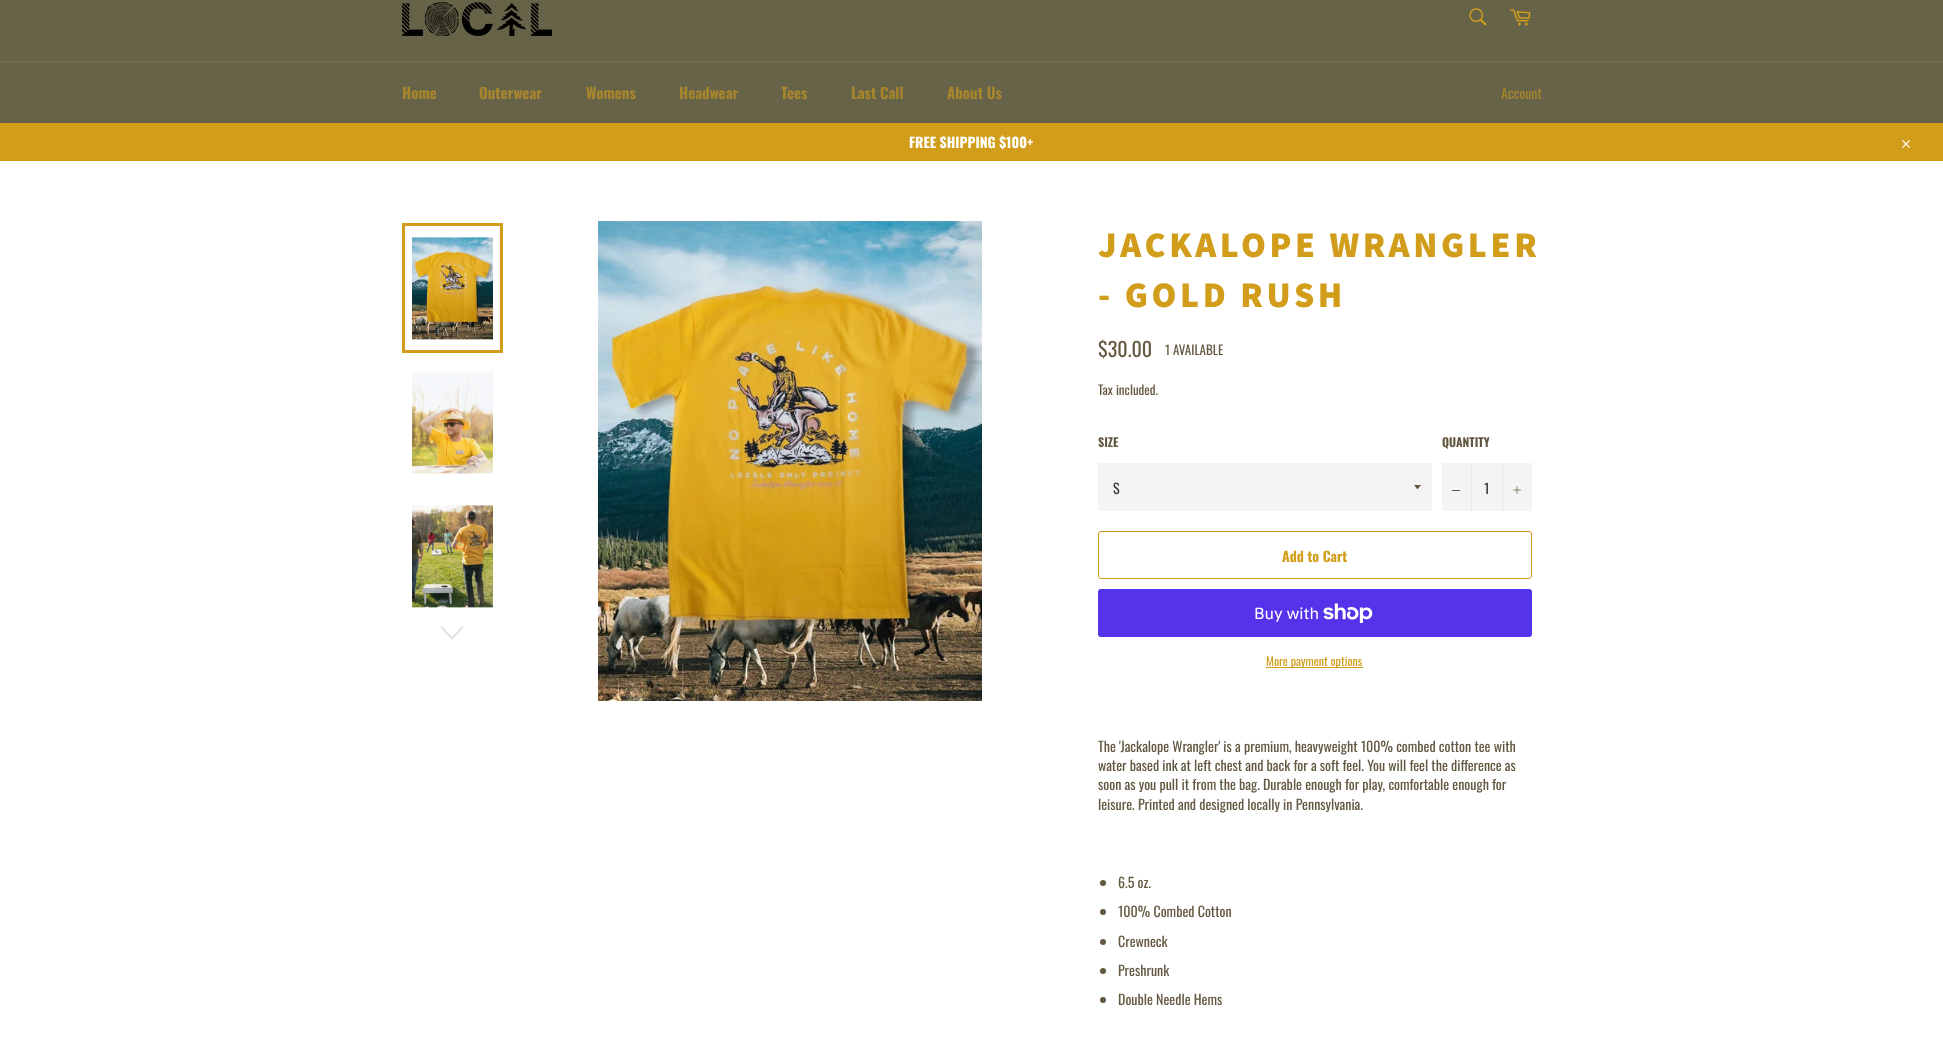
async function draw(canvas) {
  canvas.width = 1943
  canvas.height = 1060
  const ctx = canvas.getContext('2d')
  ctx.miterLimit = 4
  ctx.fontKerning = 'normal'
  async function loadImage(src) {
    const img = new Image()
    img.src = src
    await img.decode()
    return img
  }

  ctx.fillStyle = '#fff'
  ctx.fillRect(0, 0, 1943, 1060)
  ctx.fillStyle = '#676349'
  ctx.fillRect(0, 0, 1943, 61)
  ctx.drawImage(await loadImage('image0.png'), 402, 2, 150, 34)
  ctx.drawImage(await loadImage('image1.png'), 1469, 8, 18, 18)
  ctx.drawImage(await loadImage('image2.png'), 1509, 9, 22, 17)
  ctx.fillRect(0, 62, 1943, 61)
  ctx.fillStyle = '#767154'
  ctx.fillRect(0, 61, 1943, 1)
  ctx.font = 'bold 15px Oswald'
  ctx.fillStyle = '#a7862d'
  ctx.fillText('Home', 402, 99)
  ctx.fillText('Outerwear', 479, 99)
  ctx.fillText('Womens', 586, 99)
  ctx.fillText('Headwear', 679, 99)
  ctx.fillText('Tees', 781, 99)
  ctx.fillText('Last Call', 851, 99)
  ctx.fillText('About Us', 947, 99)
  ctx.font = '14px Oswald'
  ctx.fillText('Account', 1501, 99)
  ctx.fillStyle = '#d19d1a'
  ctx.fillRect(0, 123, 1943, 38)
  ctx.font = 'bold 14px Oswald'
  ctx.fillStyle = '#fff'
  ctx.fillText('FREE SHIPPING $100+', 909, 148)
  ctx.drawImage(await loadImage('image3.png'), 1902, 140, 8, 8)
  ctx.drawImage(await loadImage('image4.png'), 412, 237, 81, 103)
  ctx.strokeStyle = '#d19d1a'
  ctx.lineWidth = 3
  ctx.strokeRect(403.5, 224.5, 98, 127)
  ctx.drawImage(await loadImage('image5.png'), 412, 371, 81, 103)
  ctx.drawImage(await loadImage('image6.png'), 412, 505, 81, 103)
  ctx.fillStyle = '#e0ded9'
  ctx.beginPath()
  ctx.moveTo(462.5, 626)
  ctx.lineTo(463.5, 627.5)
  ctx.lineTo(452, 640)
  ctx.lineTo(440.5, 627.5)
  ctx.lineTo(441.5, 626)
  ctx.lineTo(452, 637)
  ctx.closePath()
  ctx.fill()
  ctx.drawImage(await loadImage('image7.png'), 598, 221, 384, 480)
  ctx.letterSpacing = '3.6px'
  ctx.font = '900 36px Source Sans Pro'
  ctx.fillStyle = '#d19d1a'
  ctx.fillText('JACKALOPE WRANGLER', 1098, 257)
  ctx.fillText('- GOLD RUSH', 1098, 307)
  ctx.letterSpacing = '0px'
  ctx.font = '20px Oswald'
  ctx.fillStyle = '#635841'
  ctx.fillText('$30.00', 1098, 357)
  ctx.font = '13px Oswald'
  ctx.fillText('1 AVAILABLE', 1165, 355)
  ctx.fillText('Tax included.', 1098, 395)
  ctx.font = 'bold 12px Oswald'
  ctx.fillText('SIZE', 1098, 447)
  ctx.fillStyle = '#f4f4f4'
  ctx.fillRect(1098, 463, 334, 48)
  ctx.fillStyle = '#635841'
  ctx.beginPath()
  ctx.moveTo(1414, 485)
  ctx.bezierCurveTo(1418.5, 490.5, 1416.5, 490.5, 1421, 485)
  ctx.closePath()
  ctx.fill()
  ctx.font = '14px Oswald'
  ctx.fillStyle = '#333'
  ctx.fillText('S', 1113, 494)
  ctx.font = 'bold 12px Oswald'
  ctx.fillStyle = '#635841'
  ctx.fillText('QUANTITY', 1442, 447)
  ctx.fillStyle = '#f4f4f4'
  ctx.fillRect(1442, 463, 90, 48)
  ctx.fillStyle = '#e7e7e7'
  ctx.fillRect(1471, 463, 1, 48)
  ctx.fillStyle = '#635841'
  ctx.fillRect(1452, 490, 8, 1)
  ctx.font = '14px Oswald'
  ctx.fillStyle = '#333'
  ctx.fillText('1', 1484, 494)
  ctx.fillStyle = '#e7e7e7'
  ctx.fillRect(1502, 463, 1, 48)
  ctx.drawImage(await loadImage('image8.png'), 1513, 486, 8, 8)
  ctx.beginPath()
  ctx.roundRect(1098.5, 531.5, 433, 47, 2.5)
  ctx.lineWidth = 1
  ctx.stroke()
  ctx.font = 'bold 14px Oswald'
  ctx.fillStyle = '#d19d1a'
  ctx.fillText('Add to Cart', 1282, 562)
  ctx.fillStyle = '#5433eb'
  ctx.beginPath()
  ctx.roundRect(1098, 589, 434, 48, 3)
  ctx.fill()
  ctx.font = '16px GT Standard'
  ctx.fillStyle = '#fff'
  ctx.fillText('Buy with', 1254, 619)
  ctx.drawImage(await loadImage('image9.png'), 1323, 603, 50, 20)
  ctx.fillStyle = '#d19d1a'
  ctx.fillRect(1266, 667, 97, 1)
  ctx.font = '12px Oswald'
  ctx.fillText('More payment options', 1266, 666)
  ctx.font = '14px Oswald'
  ctx.fillStyle = '#635841'
  ctx.fillText('The \'Jackalope Wrangler\' is a premium, heavyweight 100% combed cotton tee with', 1098, 752)
  ctx.fillText('water based ink at left chest and back for a soft feel. You will feel the difference as', 1098, 771)
  ctx.fillText('soon as you pull it from the bag. Durable enough for play, comfortable enough for', 1098, 790)
  ctx.fillText('leisure. Printed and designed locally in Pennsylvania.', 1098, 810)
  ctx.beginPath()
  ctx.arc(1103, 883, 3, 0, 2 * Math.PI)
  ctx.fill()
  ctx.fillText('6.5 oz.', 1118, 888)
  ctx.beginPath()
  ctx.arc(1103, 912, 3, 0, 2 * Math.PI)
  ctx.fill()
  ctx.fillText('100% Combed Cotton', 1118, 917)
  ctx.beginPath()
  ctx.arc(1103, 942, 3, 0, 2 * Math.PI)
  ctx.fill()
  ctx.fillText('Crewneck', 1118, 947)
  ctx.beginPath()
  ctx.arc(1103, 971, 3, 0, 2 * Math.PI)
  ctx.fill()
  ctx.fillText('Preshrunk', 1118, 976)
  ctx.beginPath()
  ctx.arc(1103, 1000, 3, 0, 2 * Math.PI)
  ctx.fill()
  ctx.fillText('Double Needle Hems', 1118, 1005)
}

draw(document.querySelector('canvas'))
